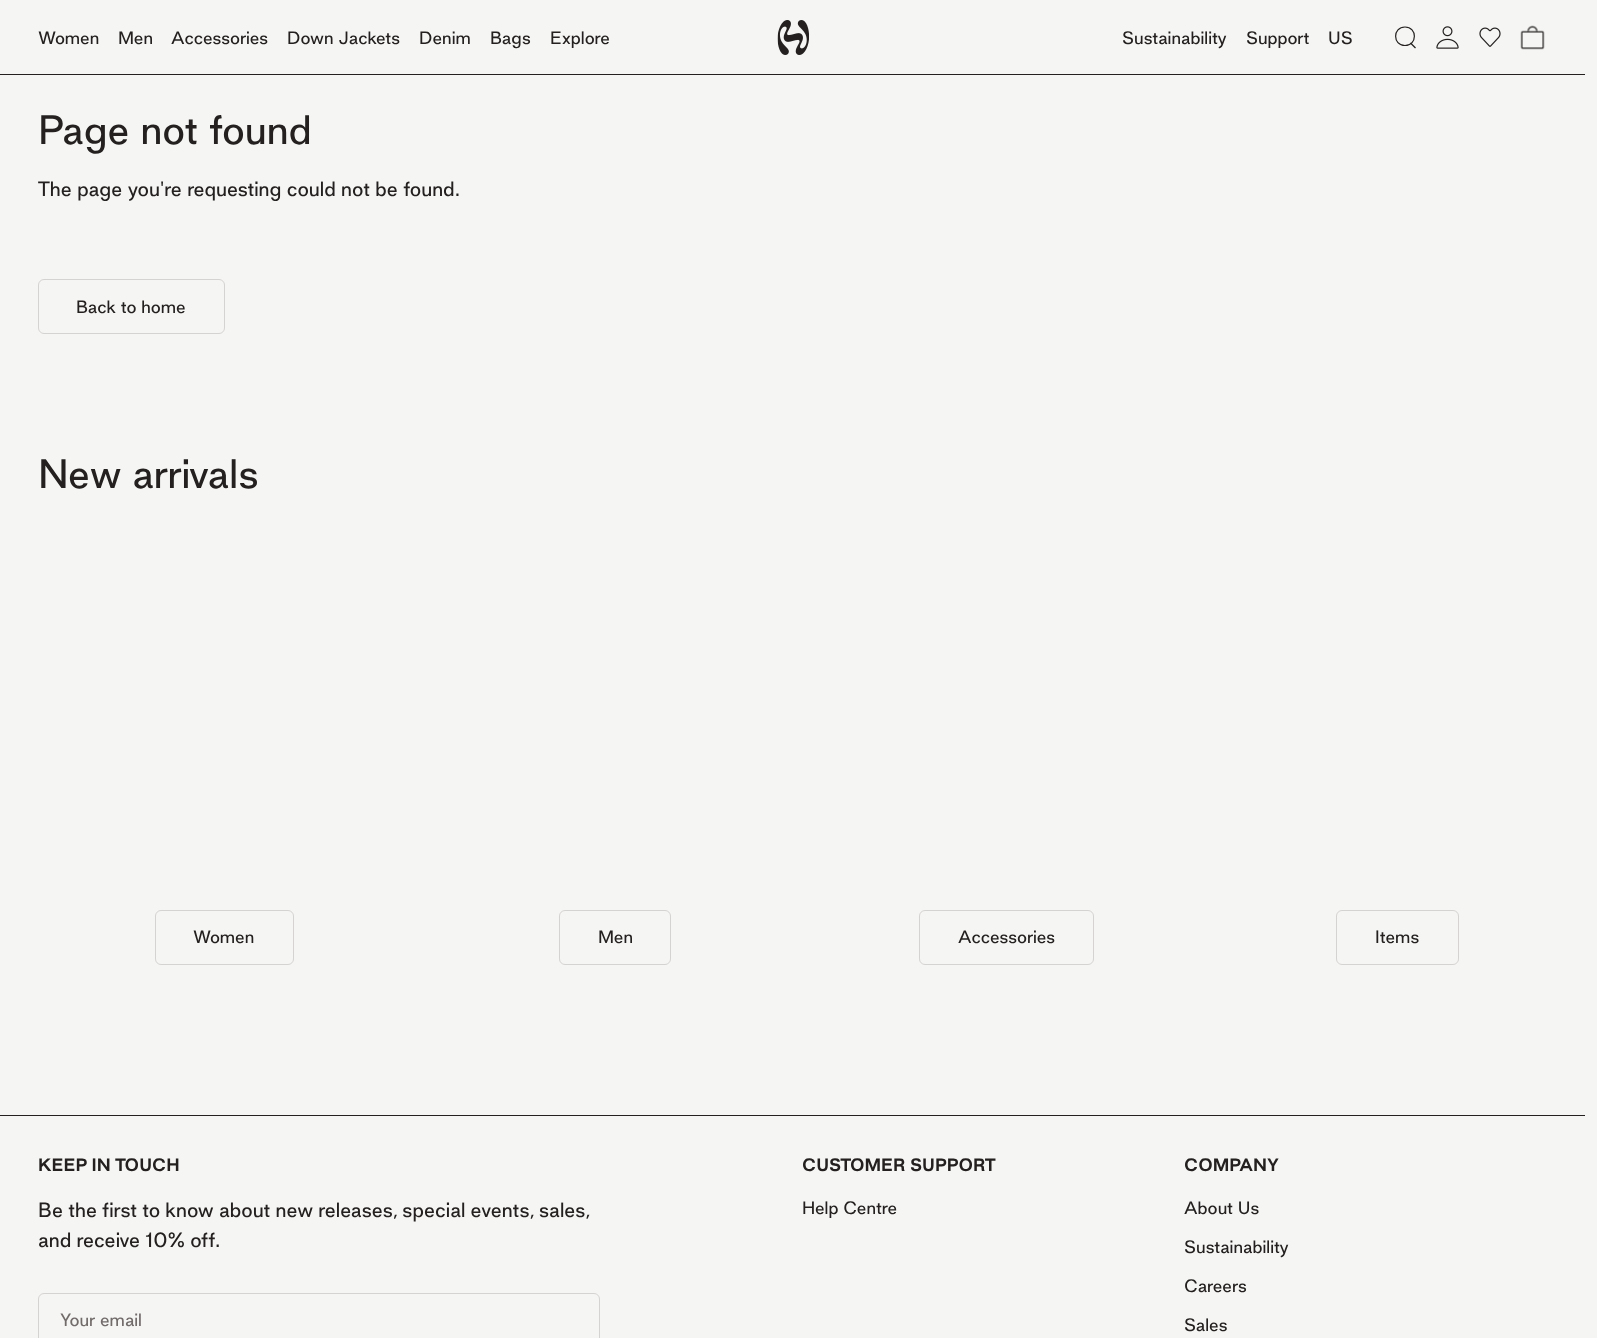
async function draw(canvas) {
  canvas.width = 1597
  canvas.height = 1338
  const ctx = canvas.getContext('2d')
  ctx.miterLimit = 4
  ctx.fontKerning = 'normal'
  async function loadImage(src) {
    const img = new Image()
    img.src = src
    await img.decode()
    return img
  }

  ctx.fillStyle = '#f5f5f4'
  ctx.fillRect(0, 0, 1597, 1338)
  ctx.fillStyle = '#23201f'
  ctx.fillRect(0, 74, 1585, 1)
  ctx.font = '17.5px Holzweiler'
  ctx.fillText('Women', 38, 44)
  ctx.fillText('Men', 118, 44)
  ctx.fillText('Accessories', 171, 44)
  ctx.fillText('Down Jackets', 287, 44)
  ctx.fillText('Denim', 419, 44)
  ctx.fillText('Bags', 490, 44)
  ctx.fillText('Explore', 550, 44)
  ctx.drawImage(await loadImage('image0.png'), 777, 20, 32, 35)
  ctx.fillText('Sustainability', 1122, 44)
  ctx.fillText('Support', 1246, 44)
  ctx.fillText('US', 1328, 44)
  ctx.beginPath()
  ctx.moveTo(1405, 45.5)
  ctx.bezierCurveTo(1417.5, 45.5, 1417.5, 27, 1405, 27)
  ctx.bezierCurveTo(1392.5, 27, 1392.5, 45.5, 1405, 45.5)
  ctx.closePath()
  ctx.strokeStyle = '#23201f'
  ctx.lineWidth = 1.2
  ctx.stroke()
  ctx.beginPath()
  ctx.moveTo(1415.5, 48)
  ctx.lineTo(1410.5, 43)
  ctx.lineWidth = 1.3
  ctx.stroke()
  ctx.drawImage(await loadImage('image1.png'), 1436, 26, 23, 23)
  ctx.drawImage(await loadImage('image2.png'), 1479, 27, 22, 20)
  ctx.drawImage(await loadImage('image3.png'), 1520, 25, 25, 25)
  ctx.font = '40px Holzweiler'
  ctx.fillText('Page not found', 38, 144)
  ctx.font = '20px Holzweiler'
  ctx.fillText('The page you\'re requesting could not be found.', 38, 196)
  ctx.beginPath()
  ctx.roundRect(38.5, 279.5, 186, 54, 5.5)
  ctx.strokeStyle = '#d5d3d2'
  ctx.lineWidth = 1
  ctx.stroke()
  ctx.font = '17.5px Holzweiler'
  ctx.fillText('Back to home', 76, 313)
  ctx.font = '40px Holzweiler'
  ctx.fillText('New arrivals', 38, 488)
  ctx.beginPath()
  ctx.roundRect(155.5, 910.5, 138, 54, 5.5)
  ctx.stroke()
  ctx.font = '17.5px Holzweiler'
  ctx.fillText('Women', 193, 943)
  ctx.beginPath()
  ctx.roundRect(559.5, 910.5, 111, 54, 5.5)
  ctx.stroke()
  ctx.fillText('Men', 598, 943)
  ctx.beginPath()
  ctx.roundRect(919.5, 910.5, 174, 54, 5.5)
  ctx.stroke()
  ctx.fillText('Accessories', 958, 943)
  ctx.beginPath()
  ctx.roundRect(1336.5, 910.5, 122, 54, 5.5)
  ctx.stroke()
  ctx.fillText('Items', 1375, 943)
  ctx.fillRect(0, 1115, 1585, 1)
  ctx.font = 'bold 17.5px Holzweiler'
  ctx.fillText('KEEP IN TOUCH', 38, 1171)
  ctx.wordSpacing = '-0.25px'
  ctx.font = '20px Holzweiler'
  ctx.fillText('Be the first to know about new releases, special events, sales,', 38, 1217)
  ctx.wordSpacing = '0px'
  ctx.fillText('and receive 10% off.', 38, 1247)
  ctx.beginPath()
  ctx.roundRect(38.5, 1293.5, 561, 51, 5.5)
  ctx.stroke()
  ctx.font = '17.5px Holzweiler'
  ctx.fillStyle = '#716b6a'
  ctx.fillText('Your email', 60, 1326)
  ctx.font = 'bold 17.5px Holzweiler'
  ctx.fillStyle = '#23201f'
  ctx.fillText('CUSTOMER SUPPORT', 802, 1171)
  ctx.font = '17.5px Holzweiler'
  ctx.fillText('Help Centre', 802, 1214)
  ctx.font = 'bold 17.5px Holzweiler'
  ctx.fillText('COMPANY', 1184, 1171)
  ctx.font = '17.5px Holzweiler'
  ctx.fillText('About Us', 1184, 1214)
  ctx.fillText('Sustainability', 1184, 1253)
  ctx.fillText('Careers', 1184, 1292)
  ctx.fillText('Sales', 1184, 1331)
}

draw(document.querySelector('canvas'))
